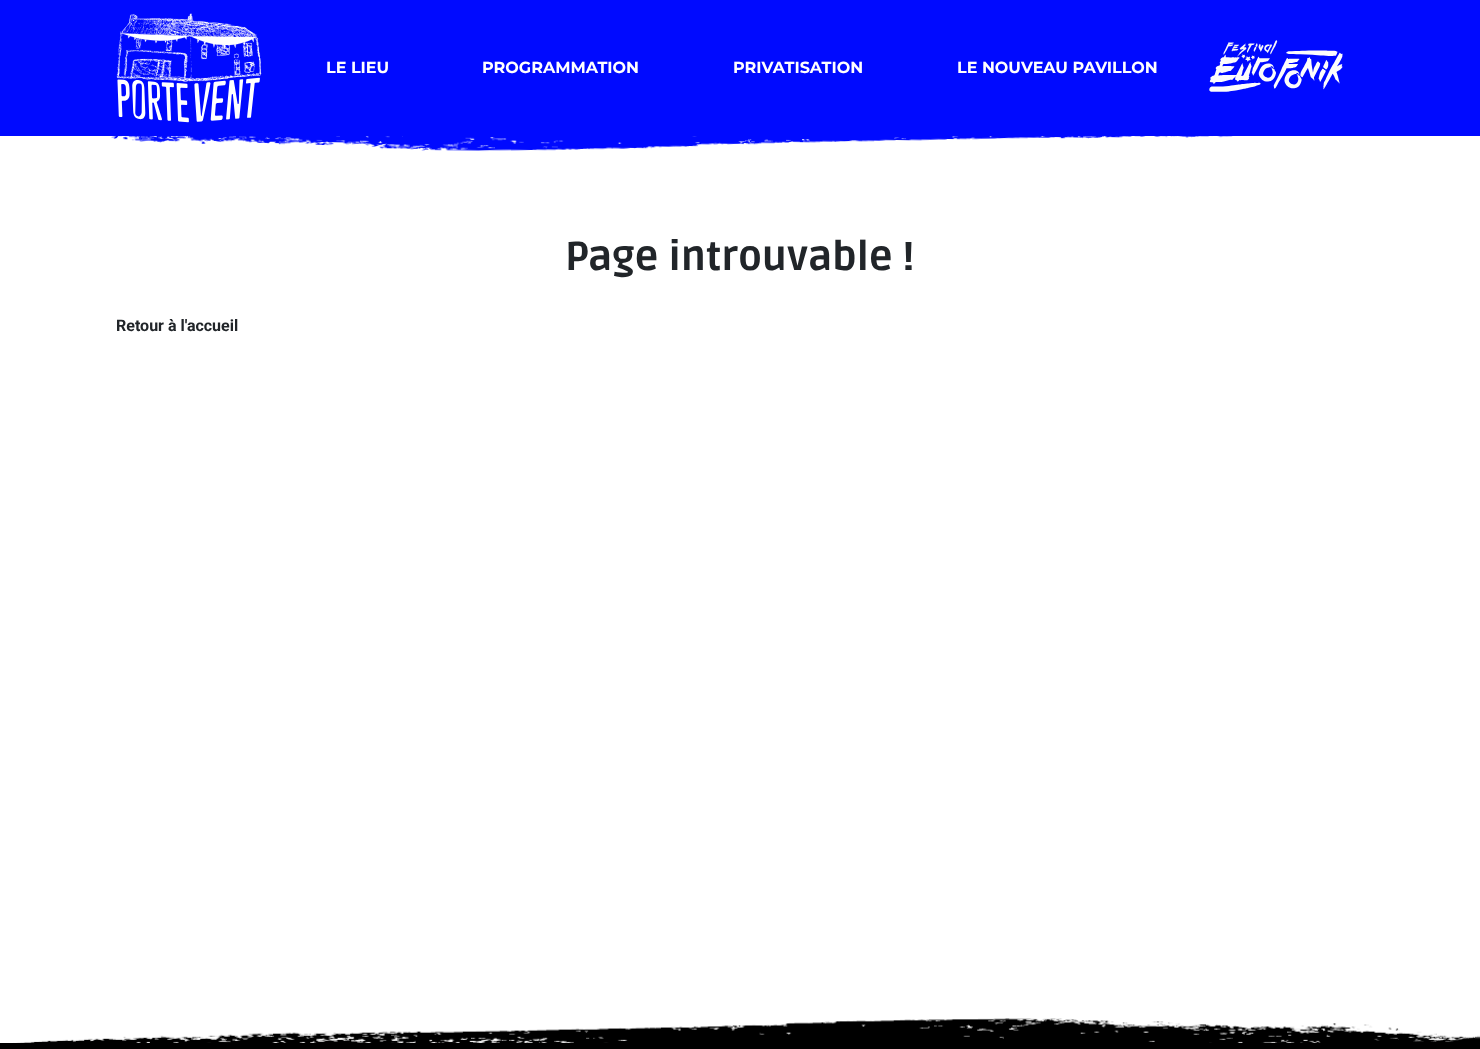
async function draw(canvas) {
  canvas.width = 1480
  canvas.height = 1049
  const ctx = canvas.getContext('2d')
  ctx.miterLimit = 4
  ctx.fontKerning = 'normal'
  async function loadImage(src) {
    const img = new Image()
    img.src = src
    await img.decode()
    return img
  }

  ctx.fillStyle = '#fff'
  ctx.fillRect(0, 0, 1480, 1049)
  ctx.fillStyle = '#000aff'
  ctx.fillRect(0, 0, 1480, 136)
  ctx.drawImage(await loadImage('image0.png'), 116, 13, 146, 110)
  ctx.font = 'bold 16px Montserrat'
  ctx.fillStyle = '#fff'
  ctx.fillText('LE LIEU', 326, 73)
  ctx.fillText('PROGRAMMATION', 482, 73)
  ctx.fillText('PRIVATISATION', 733, 73)
  ctx.fillText('LE NOUVEAU PAVILLON', 957, 73)
  ctx.drawImage(await loadImage('image1.png'), 1209, 40, 134, 52)
  ctx.drawImage(await loadImage('image2.png'), 111, 136, 1122, 16)
  ctx.font = '800 40px Ruda'
  ctx.fillStyle = '#212529'
  ctx.fillText('Page introuvable !', 565, 270)
  ctx.font = 'bold 16px Roboto'
  ctx.fillText('Retour à l\'accueil', 116, 331)
  ctx.fillStyle = '#000'
  ctx.fillRect(0, 1043, 1480, 6)
  ctx.drawImage(await loadImage('image3.png'), 13, 1018, 1467, 25)
}

draw(document.querySelector('canvas'))
